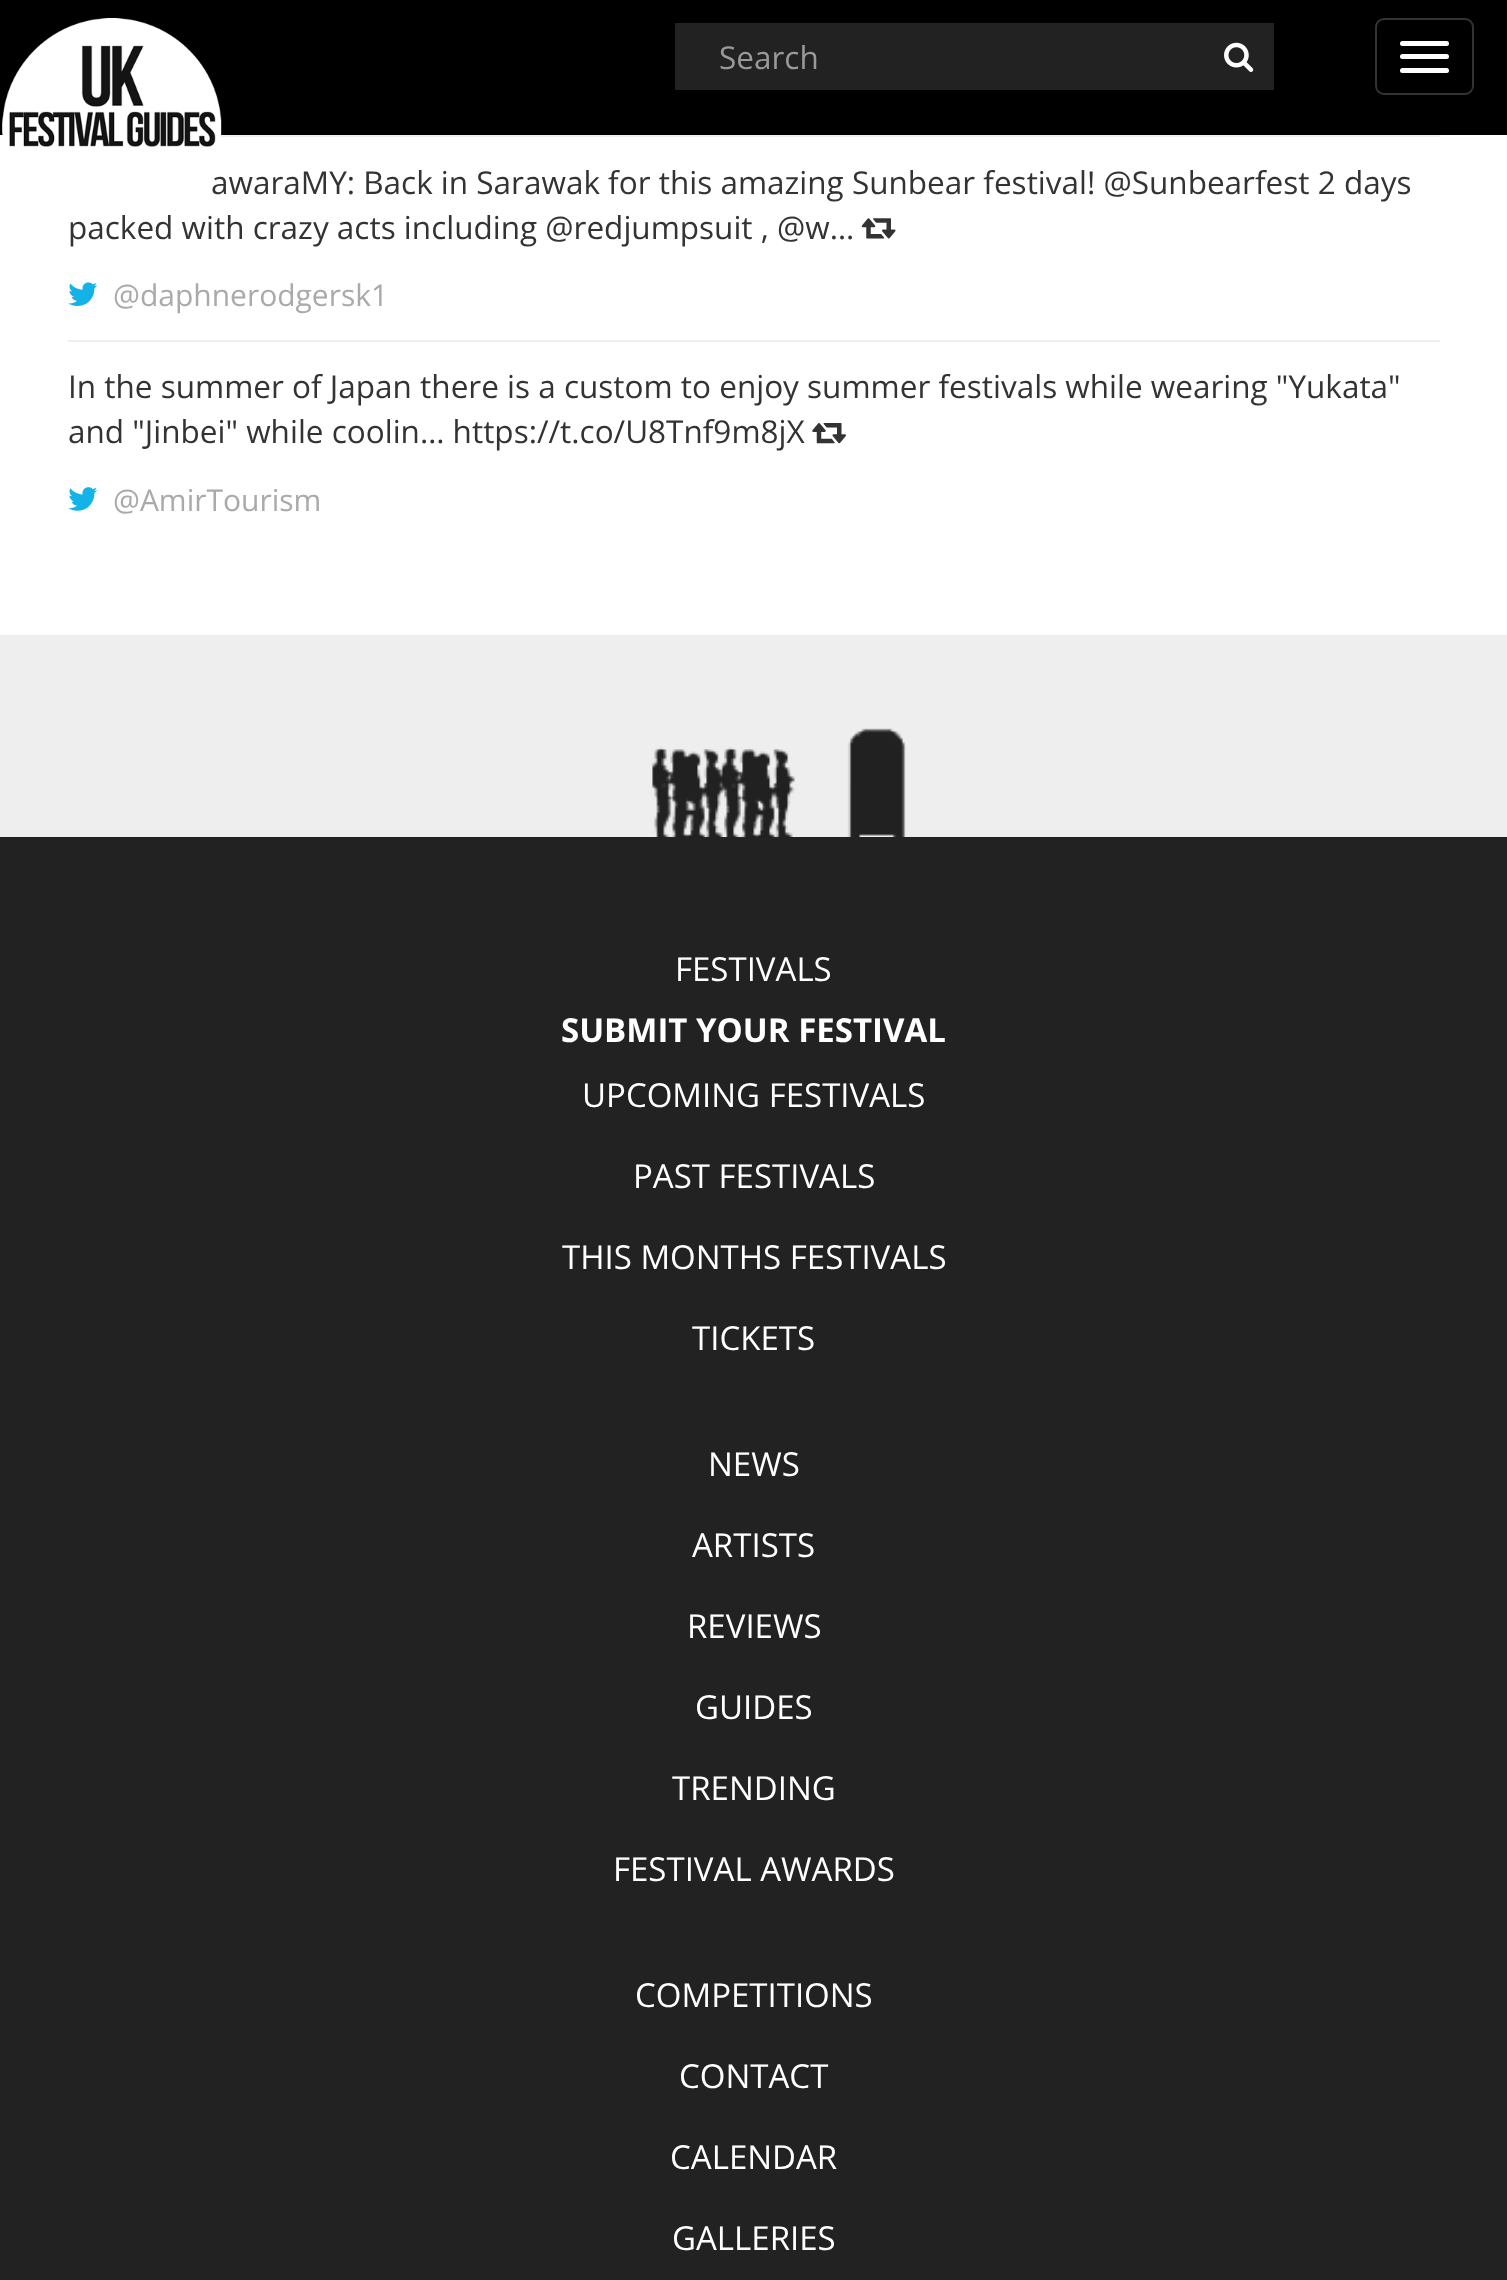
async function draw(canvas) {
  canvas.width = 1507
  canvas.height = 2280
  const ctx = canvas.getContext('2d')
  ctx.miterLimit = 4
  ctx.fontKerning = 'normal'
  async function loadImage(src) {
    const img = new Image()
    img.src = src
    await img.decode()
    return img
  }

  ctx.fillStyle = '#eee'
  ctx.fillRect(0, 0, 1507, 2280)
  ctx.fillStyle = '#000'
  ctx.fillRect(0, 0, 1507, 135)
  ctx.fillStyle = '#fff'
  ctx.fillRect(0, 135, 1507, 500)
  ctx.fillStyle = '#eee'
  ctx.fillRect(220, 135, 1220, 2)
  ctx.font = '31.5px Open Sans'
  ctx.fillStyle = '#333'
  ctx.fillText('awaraMY: Back in Sarawak for this amazing Sunbear festival! @Sunbearfest 2 days', 211, 194)
  ctx.drawImage(await loadImage('image0.png'), 2, 18, 220, 179)
  ctx.fillStyle = '#222'
  ctx.fillRect(675, 23, 599, 67)
  ctx.drawImage(await loadImage('image1.png'), 1224, 42, 30, 30)
  ctx.fillStyle = '#999'
  ctx.fillText('Search', 719, 69)
  ctx.beginPath()
  ctx.roundRect(1376, 19, 97, 75, 8)
  ctx.strokeStyle = '#333'
  ctx.lineWidth = 2
  ctx.stroke()
  ctx.fillStyle = '#fff'
  ctx.beginPath()
  ctx.roundRect(1400, 41, 49, 5, 2.5)
  ctx.fill()
  ctx.beginPath()
  ctx.roundRect(1400, 54, 49, 5, 2.5)
  ctx.fill()
  ctx.beginPath()
  ctx.roundRect(1400, 68, 49, 5, 2.5)
  ctx.fill()
  ctx.fillStyle = '#333'
  ctx.fillText('packed with crazy acts including @redjumpsuit , @w…', 68, 239)
  ctx.drawImage(await loadImage('image2.png'), 861, 218, 35, 21)
  ctx.drawImage(await loadImage('image3.png'), 68, 282, 30, 24)
  ctx.font = '30px Open Sans'
  ctx.fillStyle = '#aaa'
  ctx.fillText('@daphnerodgersk1', 113, 306)
  ctx.fillStyle = '#eee'
  ctx.fillRect(68, 340, 1372, 2)
  ctx.font = '31.5px Open Sans'
  ctx.fillStyle = '#333'
  ctx.fillText('In the summer of Japan there is a custom to enjoy summer festivals while wearing "Yukata"', 68, 398)
  ctx.fillText('and "Jinbei" while coolin… https://t.co/U8Tnf9m8jX', 68, 443)
  ctx.drawImage(await loadImage('image4.png'), 812, 423, 34, 21)
  ctx.drawImage(await loadImage('image5.png'), 68, 487, 30, 24)
  ctx.font = '30px Open Sans'
  ctx.fillStyle = '#aaa'
  ctx.fillText('@AmirTourism', 113, 511)
  ctx.fillStyle = '#222'
  ctx.fillRect(0, 837, 1507, 1443)
  ctx.drawImage(await loadImage('image6.png'), 652, 728, 254, 110)
  ctx.font = '33px Open Sans'
  ctx.fillStyle = '#fff'
  ctx.fillText('FESTIVALS', 675, 981)
  ctx.font = 'bold 33px Open Sans'
  ctx.fillText('SUBMIT YOUR FESTIVAL', 561, 1042)
  ctx.font = '33px Open Sans'
  ctx.fillText('UPCOMING FESTIVALS', 582, 1107)
  ctx.fillText('PAST FESTIVALS', 633, 1188)
  ctx.fillText('THIS MONTHS FESTIVALS', 562, 1269)
  ctx.fillText('TICKETS', 692, 1350)
  ctx.fillText('NEWS', 708, 1476)
  ctx.fillText('ARTISTS', 692, 1557)
  ctx.fillText('REVIEWS', 687, 1638)
  ctx.fillText('GUIDES', 695, 1719)
  ctx.fillText('TRENDING', 672, 1800)
  ctx.fillText('FESTIVAL AWARDS', 613, 1881)
  ctx.fillText('COMPETITIONS', 635, 2007)
  ctx.fillText('CONTACT', 679, 2088)
  ctx.fillText('CALENDAR', 670, 2169)
  ctx.fillText('GALLERIES', 672, 2250)
}

draw(document.querySelector('canvas'))
